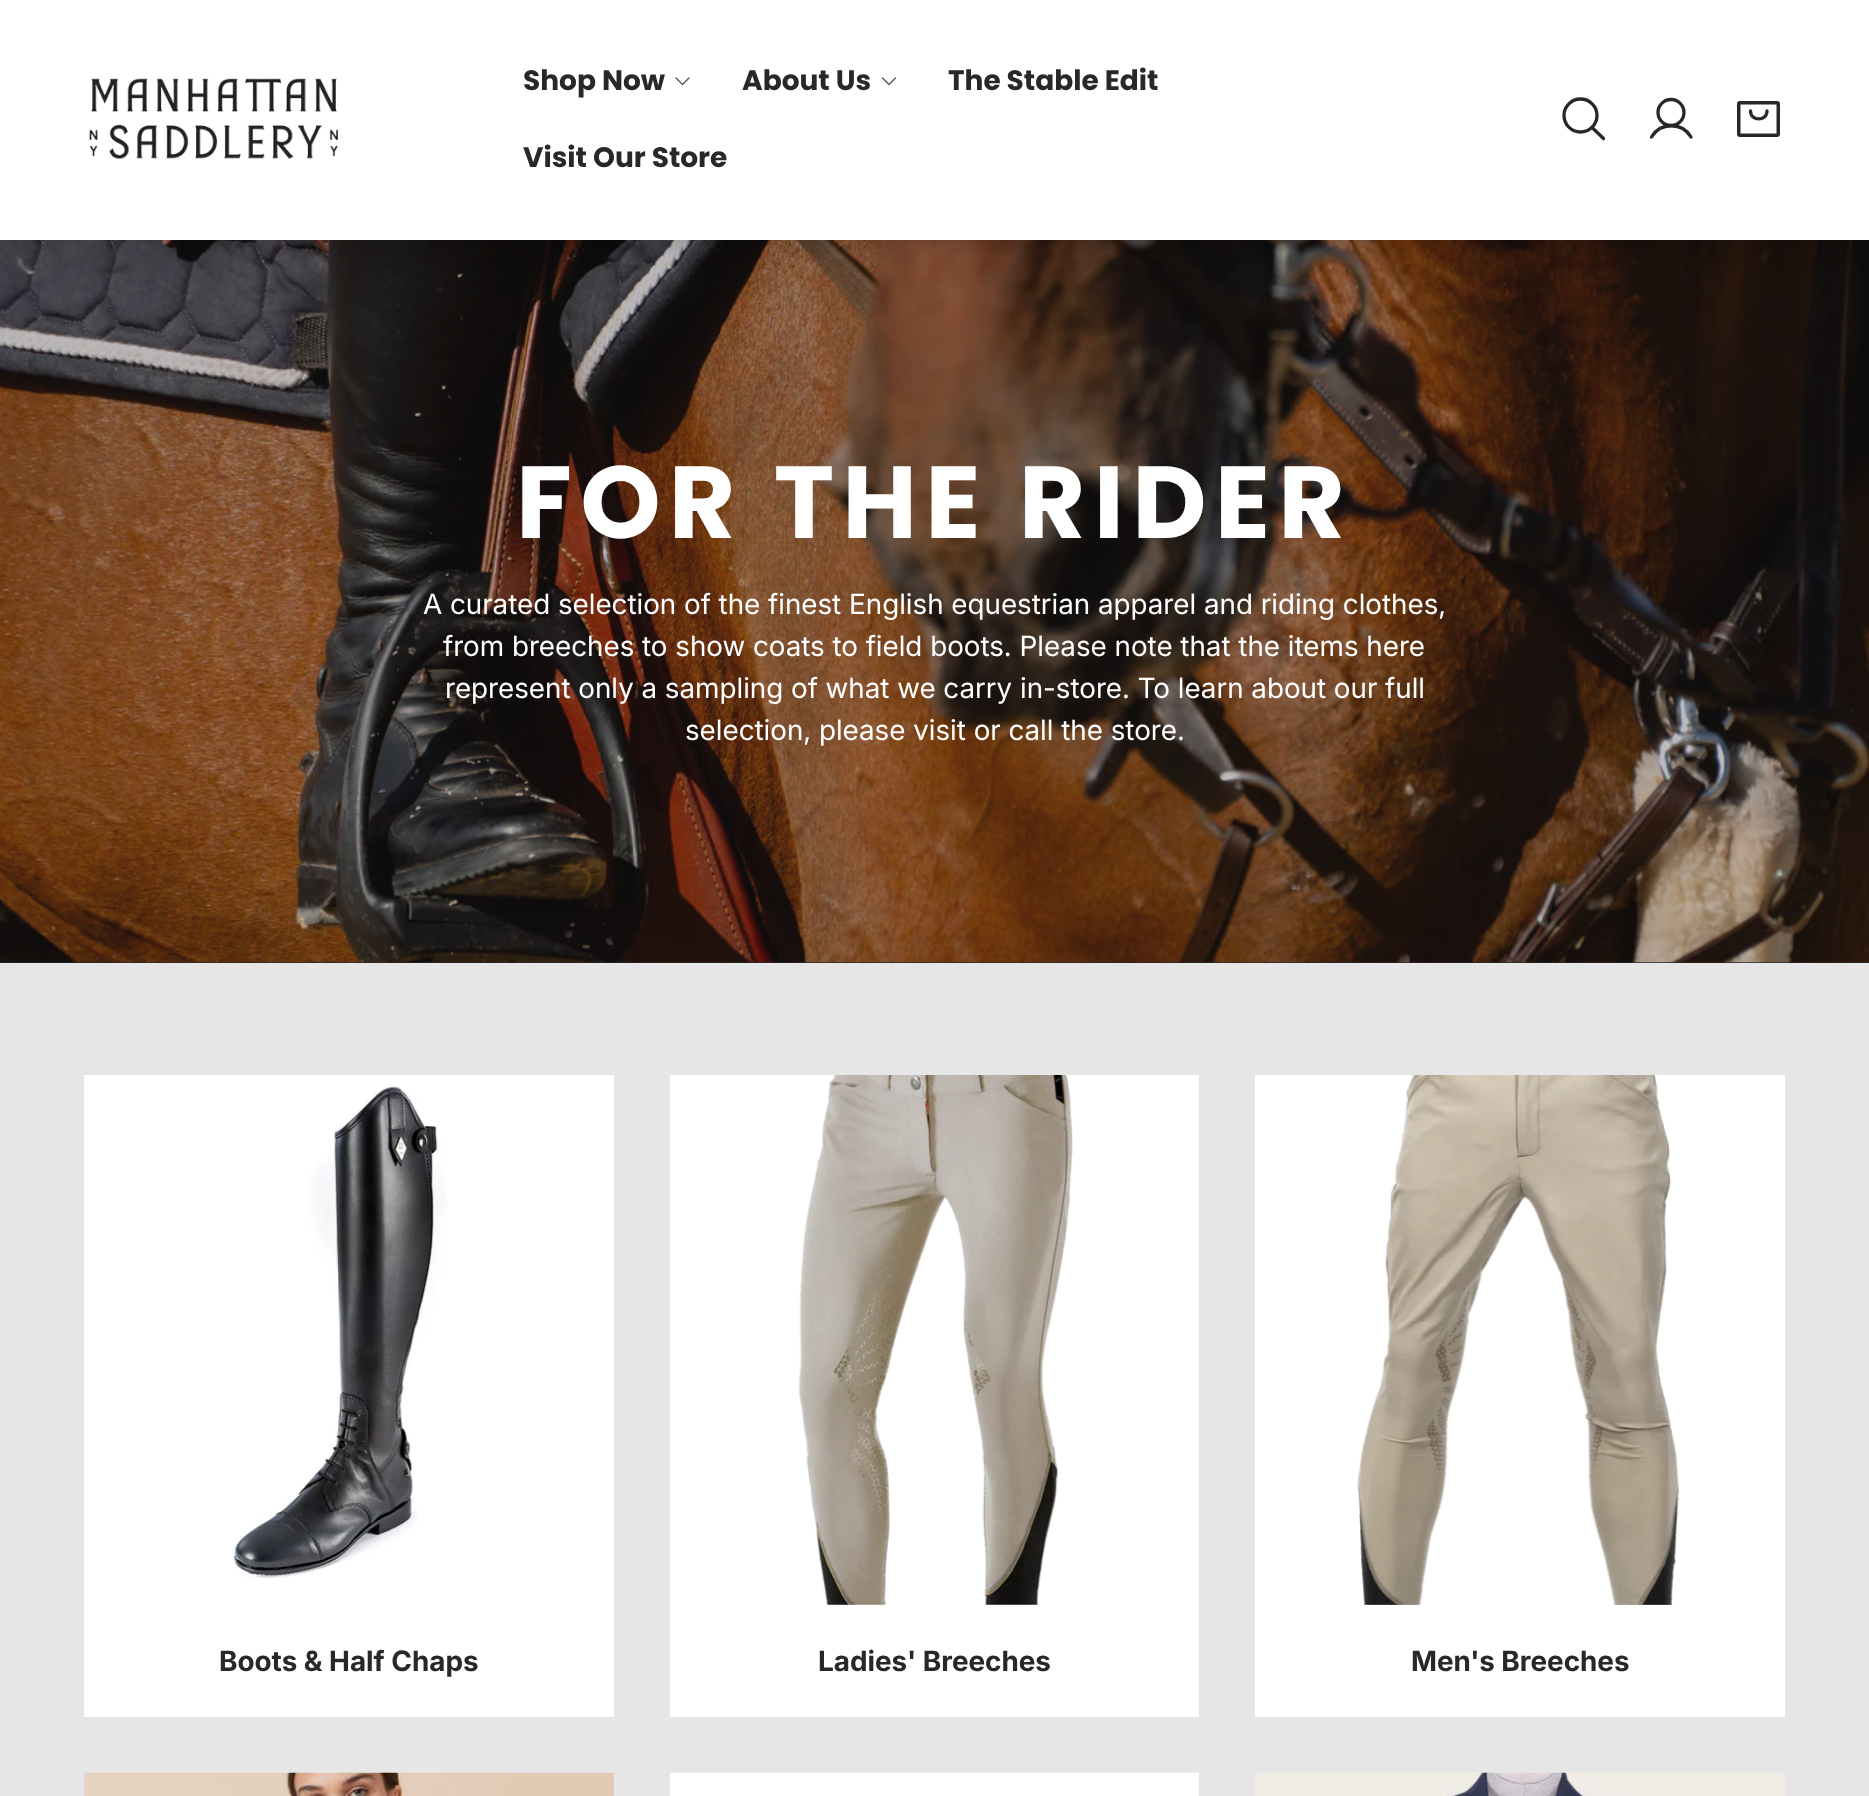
async function draw(canvas) {
  canvas.width = 1869
  canvas.height = 1796
  const ctx = canvas.getContext('2d')
  ctx.miterLimit = 4
  ctx.fontKerning = 'normal'
  async function loadImage(src) {
    const img = new Image()
    img.src = src
    await img.decode()
    return img
  }

  ctx.fillStyle = '#282828'
  ctx.fillRect(0, 0, 1869, 1796)
  ctx.drawImage(await loadImage('image1.png'), 0, 240, 1869, 723)
  ctx.fillStyle = '#00000033'
  ctx.filter = 'blur(13px)'
  ctx.beginPath()
  ctx.rect(0, 4, 1869, 239)
  ctx.fill()
  ctx.filter = 'none'
  ctx.fillStyle = '#fff'
  ctx.fillRect(0, 0, 1869, 240)
  ctx.drawImage(await loadImage('image0.png'), 89, 78, 250, 82)
  ctx.font = 'bold 28px Poppins'
  ctx.fillStyle = '#282828'
  ctx.fillText('Shop Now', 523, 90)
  ctx.beginPath()
  ctx.moveTo(689, 78)
  ctx.lineTo(682.5, 84.5)
  ctx.lineTo(676, 78)
  ctx.strokeStyle = '#535353'
  ctx.lineWidth = 1.3
  ctx.lineCap = 'round'
  ctx.lineJoin = 'round'
  ctx.stroke()
  ctx.fillText('About Us', 742, 90)
  ctx.beginPath()
  ctx.moveTo(895.5, 78)
  ctx.lineTo(889, 84.5)
  ctx.lineTo(882.5, 78)
  ctx.stroke()
  ctx.fillText('The Stable Edit', 948, 90)
  ctx.fillText('Visit Our Store', 523, 167)
  ctx.beginPath()
  ctx.arc(1580.5, 115.5, 16.5, 0, 2 * Math.PI)
  ctx.strokeStyle = '#282828'
  ctx.lineWidth = 3.3
  ctx.stroke()
  ctx.beginPath()
  ctx.moveTo(1592, 127.5)
  ctx.lineTo(1603.5, 138.5)
  ctx.stroke()
  ctx.beginPath()
  ctx.arc(1671, 112.5, 13, 0, 2 * Math.PI)
  ctx.stroke()
  ctx.beginPath()
  ctx.moveTo(1651.5, 137)
  ctx.bezierCurveTo(1660.5, 122, 1682, 122, 1691, 137)
  ctx.stroke()
  ctx.beginPath()
  ctx.roundRect(1738.75, 102.75, 39.5, 32.5, 1.25)
  ctx.lineWidth = 3.5
  ctx.lineJoin = 'miter'
  ctx.stroke()
  ctx.beginPath()
  ctx.moveTo(1767, 111)
  ctx.bezierCurveTo(1767, 121.5, 1750.5, 121.5, 1750.5, 111)
  ctx.lineWidth = 3.3
  ctx.lineJoin = 'round'
  ctx.stroke()
  ctx.letterSpacing = '8.25px'
  ctx.font = 'bold 102.25px Poppins'
  ctx.fillStyle = '#fff'
  ctx.fillText('FOR THE RIDER', 516, 538)
  ctx.letterSpacing = '0px'
  ctx.font = '28px Inter'
  ctx.fillText('A curated selection of the finest English equestrian apparel and riding clothes,', 423, 614)
  ctx.fillText('from breeches to show coats to field boots. Please note that the items here', 443, 656)
  ctx.fillText('represent only a sampling of what we carry in-store. To learn about our full', 445, 698)
  ctx.fillText('selection, please visit or call the store.', 685, 740)
  ctx.fillStyle = '#e6e6e6'
  ctx.fillRect(0, 963, 1869, 833)
  ctx.fillStyle = '#fff'
  ctx.fillRect(84, 1075, 530, 642)
  ctx.drawImage(await loadImage('image2.png'), 232, 1086, 215, 493)
  ctx.font = 'bold 28px Inter'
  ctx.fillStyle = '#282828'
  ctx.fillText('Boots & Half Chaps', 219, 1671)
  ctx.fillStyle = '#fff'
  ctx.fillRect(670, 1075, 529, 642)
  ctx.drawImage(await loadImage('image3.png'), 798, 1075, 275, 530)
  ctx.fillStyle = '#282828'
  ctx.fillText('Ladies\' Breeches', 818, 1671)
  ctx.fillStyle = '#fff'
  ctx.fillRect(1255, 1075, 530, 642)
  ctx.drawImage(await loadImage('image4.png'), 1357, 1075, 323, 530)
  ctx.fillStyle = '#282828'
  ctx.fillText('Men\'s Breeches', 1411, 1671)
  ctx.drawImage(await loadImage('image5.png'), 84, 1772, 530, 24)
  ctx.fillStyle = '#fff'
  ctx.fillRect(670, 1773, 529, 23)
  ctx.drawImage(await loadImage('image6.png'), 671, 1772, 528, 1)
  ctx.drawImage(await loadImage('image7.png'), 1255, 1772, 530, 24)
}

draw(document.querySelector('canvas'))
